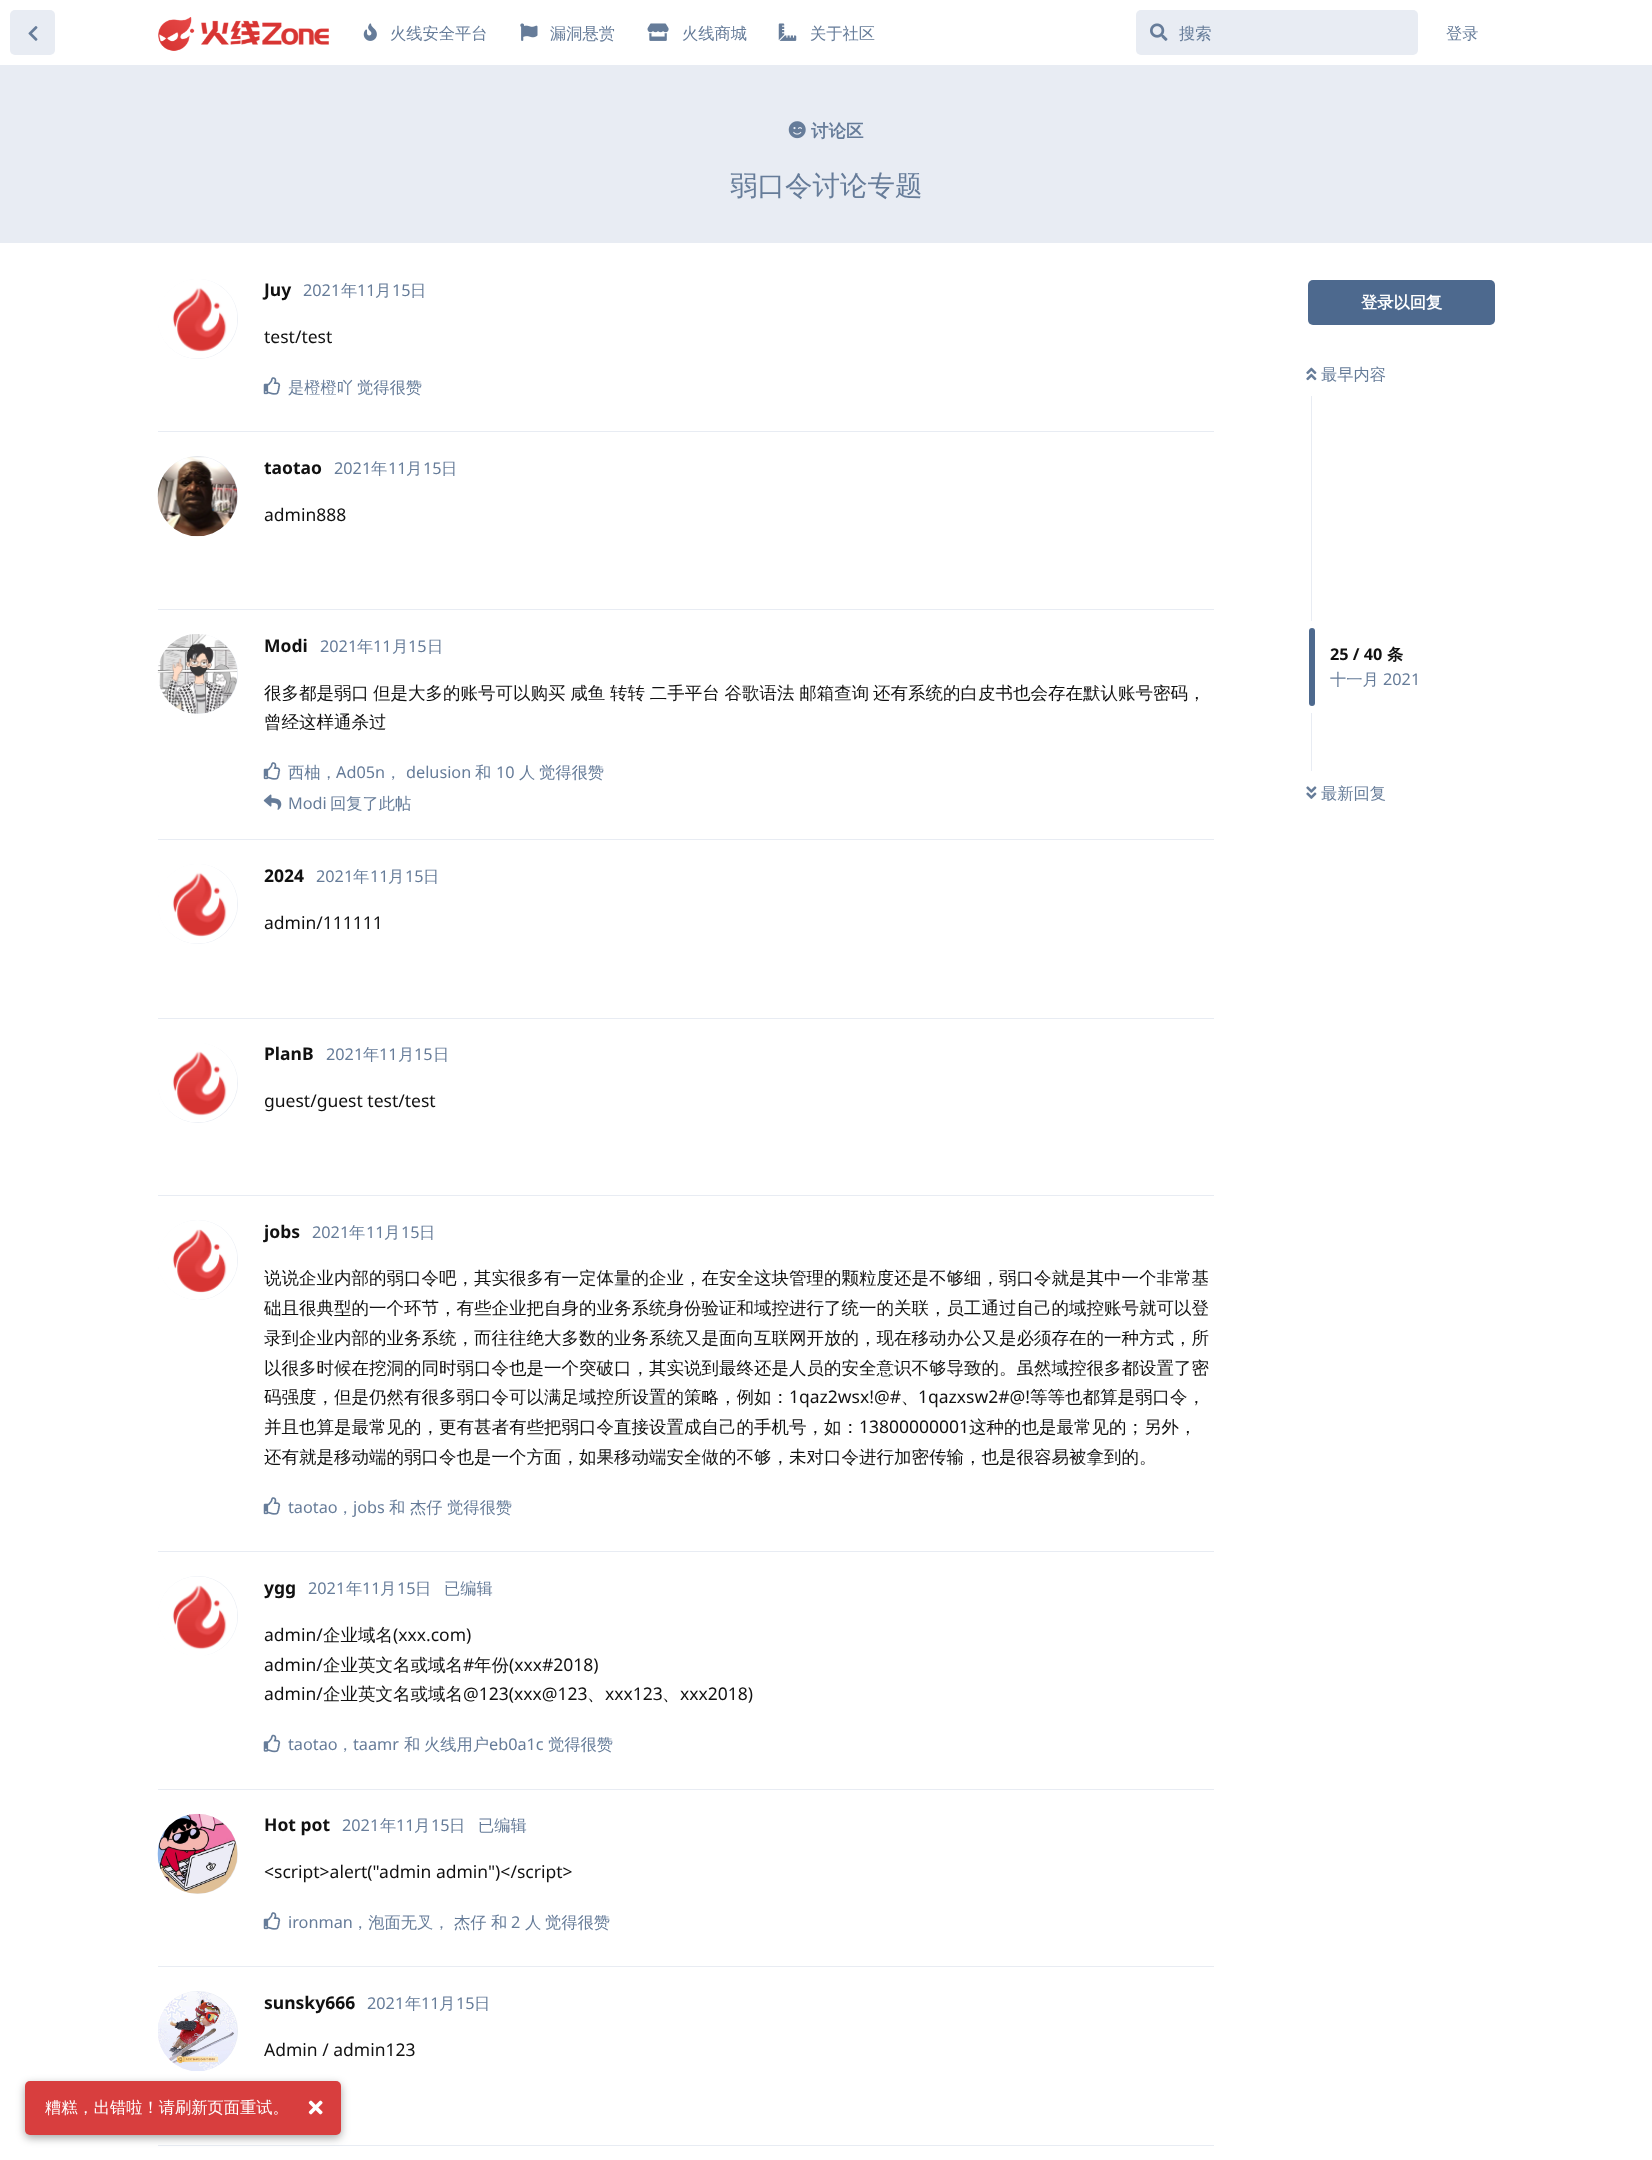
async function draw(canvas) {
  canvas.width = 1652
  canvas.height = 2160
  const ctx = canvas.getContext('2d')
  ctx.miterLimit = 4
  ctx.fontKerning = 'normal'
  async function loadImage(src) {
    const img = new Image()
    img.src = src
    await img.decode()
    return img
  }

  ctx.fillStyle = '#fff'
  ctx.fillRect(0, 0, 1652, 2160)
  ctx.fillStyle = '#e8ecf3'
  ctx.beginPath()
  ctx.roundRect(10, 10, 45, 45, 5)
  ctx.fill()
  ctx.drawImage(await loadImage('image0.png'), 28, 26, 10, 15)
  ctx.drawImage(await loadImage('image1.png'), 158, 17, 171, 34)
  ctx.drawImage(await loadImage('image2.png'), 363, 23, 14, 18)
  ctx.font = '500 16.25px WenQuanYi Zen Hei'
  ctx.fillStyle = '#667c99'
  ctx.fillText('火线安全平台', 390, 39)
  ctx.drawImage(await loadImage('image3.png'), 520, 23, 18, 18)
  ctx.fillText('漏洞悬赏', 550, 39)
  ctx.drawImage(await loadImage('image4.png'), 647, 23, 22, 18)
  ctx.fillText('火线商城', 682, 39)
  ctx.drawImage(await loadImage('image5.png'), 778, 23, 19, 18)
  ctx.fillText('关于社区', 810, 39)
  ctx.fillStyle = '#e8ecf3'
  ctx.beginPath()
  ctx.roundRect(1136, 10, 282, 45, 5)
  ctx.fill()
  ctx.drawImage(await loadImage('image6.png'), 1150, 23, 18, 18)
  ctx.fillStyle = '#667c99'
  ctx.fillText('搜索', 1179, 39)
  ctx.fillText('登录', 1446, 39)
  ctx.fillStyle = '#e8ecf3'
  ctx.fillRect(0, 65, 1652, 178)
  ctx.drawImage(await loadImage('image7.png'), 788, 121, 18, 18)
  ctx.font = 'bold 17.5px WenQuanYi Zen Hei'
  ctx.fillStyle = '#667c99'
  ctx.fillText('讨论区', 811, 137)
  ctx.font = '500 27.5px WenQuanYi Zen Hei'
  ctx.fillText('弱口令讨论专题', 730, 195)
  ctx.fillStyle = '#e8ecf3'
  ctx.fillRect(158, 431, 1056, 1)
  ctx.beginPath()
  ctx.arc(198, 319, 40, 0, 2 * Math.PI)
  ctx.fill()
  ctx.drawImage(await loadImage('image8.png'), 158, 279, 80, 80)
  ctx.font = 'bold 17.5px Noto Sans'
  ctx.fillStyle = '#111'
  ctx.fillText('Juy', 264, 296)
  ctx.font = '16.25px Noto Sans'
  ctx.fillStyle = '#667c99'
  ctx.fillText('2021', 303, 296)
  ctx.font = '500 16.25px WenQuanYi Zen Hei'
  ctx.fillText('年', 341, 296)
  ctx.font = '16.25px Noto Sans'
  ctx.fillText('11', 357, 296)
  ctx.font = '500 16.25px WenQuanYi Zen Hei'
  ctx.fillText('月', 375, 296)
  ctx.font = '16.25px Noto Sans'
  ctx.fillText('15', 392, 296)
  ctx.font = '500 16.25px WenQuanYi Zen Hei'
  ctx.fillText('日', 410, 296)
  ctx.font = '17.5px Noto Sans'
  ctx.fillStyle = '#111'
  ctx.fillText('test/test', 264, 343)
  ctx.drawImage(await loadImage('image9.png'), 263, 377, 18, 18)
  ctx.font = '500 16.25px WenQuanYi Zen Hei'
  ctx.fillStyle = '#667c99'
  ctx.fillText('是橙橙吖', 288, 393)
  ctx.fillText('觉得很赞', 357, 393)
  ctx.fillStyle = '#e8ecf3'
  ctx.fillRect(158, 609, 1056, 1)
  ctx.beginPath()
  ctx.arc(198, 496, 40, 0, 2 * Math.PI)
  ctx.fill()
  ctx.drawImage(await loadImage('image10.png'), 157, 456, 81, 81)
  ctx.font = 'bold 17.5px Noto Sans'
  ctx.fillStyle = '#111'
  ctx.fillText('taotao', 264, 474)
  ctx.font = '16.25px Noto Sans'
  ctx.fillStyle = '#667c99'
  ctx.fillText('2021', 334, 474)
  ctx.font = '500 16.25px WenQuanYi Zen Hei'
  ctx.fillText('年', 371, 474)
  ctx.font = '16.25px Noto Sans'
  ctx.fillText('11', 388, 474)
  ctx.font = '500 16.25px WenQuanYi Zen Hei'
  ctx.fillText('月', 406, 474)
  ctx.font = '16.25px Noto Sans'
  ctx.fillText('15', 423, 474)
  ctx.font = '500 16.25px WenQuanYi Zen Hei'
  ctx.fillText('日', 441, 474)
  ctx.font = '17.5px Noto Sans'
  ctx.fillStyle = '#111'
  ctx.fillText('admin888', 264, 521)
  ctx.fillStyle = '#e8ecf3'
  ctx.fillRect(158, 839, 1056, 1)
  ctx.beginPath()
  ctx.arc(198, 674, 40, 0, 2 * Math.PI)
  ctx.fill()
  ctx.drawImage(await loadImage('image11.png'), 157, 634, 81, 80)
  ctx.font = 'bold 17.5px Noto Sans'
  ctx.fillStyle = '#111'
  ctx.fillText('Modi', 264, 652)
  ctx.font = '16.25px Noto Sans'
  ctx.fillStyle = '#667c99'
  ctx.fillText('2021', 320, 652)
  ctx.font = '500 16.25px WenQuanYi Zen Hei'
  ctx.fillText('年', 357, 652)
  ctx.font = '16.25px Noto Sans'
  ctx.fillText('11', 373, 652)
  ctx.font = '500 16.25px WenQuanYi Zen Hei'
  ctx.fillText('月', 392, 652)
  ctx.font = '16.25px Noto Sans'
  ctx.fillText('15', 408, 652)
  ctx.font = '500 16.25px WenQuanYi Zen Hei'
  ctx.fillText('日', 427, 652)
  ctx.font = '500 17.5px WenQuanYi Zen Hei'
  ctx.fillStyle = '#111'
  ctx.fillText('很多都是弱口', 264, 699)
  ctx.wordSpacing = '-0.5px'
  ctx.fillText('但是大多的账号可以购买 咸鱼 转转 二手平台 谷歌语法 邮箱查询', 373, 699)
  ctx.wordSpacing = '0px'
  ctx.fillText('还有系统的白皮书也会存在默认账号密码，', 873, 699)
  ctx.fillText('曾经这样通杀过', 264, 728)
  ctx.drawImage(await loadImage('image9.png'), 263, 762, 18, 18)
  ctx.font = '500 16.25px WenQuanYi Zen Hei'
  ctx.fillStyle = '#667c99'
  ctx.fillText('西柚，', 288, 778)
  ctx.font = '16.25px Noto Sans'
  ctx.fillText('Ad05n', 336, 778)
  ctx.font = '500 16.25px WenQuanYi Zen Hei'
  ctx.fillText('，', 385, 778)
  ctx.font = '16.25px Noto Sans'
  ctx.fillText('delusion', 406, 778)
  ctx.font = '500 16.25px WenQuanYi Zen Hei'
  ctx.fillText('和', 475, 778)
  ctx.font = '16.25px Noto Sans'
  ctx.fillText('10', 496, 778)
  ctx.font = '500 16.25px WenQuanYi Zen Hei'
  ctx.fillText('人', 519, 778)
  ctx.fillText('觉得很赞', 539, 778)
  ctx.drawImage(await loadImage('image12.png'), 263, 794, 19, 16)
  ctx.font = '16.25px Noto Sans'
  ctx.fillText('Modi', 288, 809)
  ctx.font = '500 16.25px WenQuanYi Zen Hei'
  ctx.fillText('回复了此帖', 330, 809)
  ctx.fillStyle = '#e8ecf3'
  ctx.fillRect(158, 1018, 1056, 1)
  ctx.beginPath()
  ctx.arc(198, 904, 40, 0, 2 * Math.PI)
  ctx.fill()
  ctx.drawImage(await loadImage('image8.png'), 158, 864, 80, 80)
  ctx.font = 'bold 17.5px Noto Sans'
  ctx.fillStyle = '#111'
  ctx.fillText('2024', 264, 882)
  ctx.font = '16.25px Noto Sans'
  ctx.fillStyle = '#667c99'
  ctx.fillText('2021', 316, 882)
  ctx.font = '500 16.25px WenQuanYi Zen Hei'
  ctx.fillText('年', 353, 882)
  ctx.font = '16.25px Noto Sans'
  ctx.fillText('11', 370, 882)
  ctx.font = '500 16.25px WenQuanYi Zen Hei'
  ctx.fillText('月', 388, 882)
  ctx.font = '16.25px Noto Sans'
  ctx.fillText('15', 405, 882)
  ctx.font = '500 16.25px WenQuanYi Zen Hei'
  ctx.fillText('日', 423, 882)
  ctx.font = '17.5px Noto Sans'
  ctx.fillStyle = '#111'
  ctx.fillText('admin/111111', 264, 929)
  ctx.fillStyle = '#e8ecf3'
  ctx.fillRect(158, 1195, 1056, 1)
  ctx.beginPath()
  ctx.arc(198, 1083, 40, 0, 2 * Math.PI)
  ctx.fill()
  ctx.drawImage(await loadImage('image13.png'), 158, 1043, 80, 80)
  ctx.font = 'bold 17.5px Noto Sans'
  ctx.fillStyle = '#111'
  ctx.fillText('PlanB', 264, 1060)
  ctx.font = '16.25px Noto Sans'
  ctx.fillStyle = '#667c99'
  ctx.fillText('2021', 326, 1060)
  ctx.font = '500 16.25px WenQuanYi Zen Hei'
  ctx.fillText('年', 363, 1060)
  ctx.font = '16.25px Noto Sans'
  ctx.fillText('11', 379, 1060)
  ctx.font = '500 16.25px WenQuanYi Zen Hei'
  ctx.fillText('月', 398, 1060)
  ctx.font = '16.25px Noto Sans'
  ctx.fillText('15', 414, 1060)
  ctx.font = '500 16.25px WenQuanYi Zen Hei'
  ctx.fillText('日', 433, 1060)
  ctx.font = '17.5px Noto Sans'
  ctx.fillStyle = '#111'
  ctx.fillText('guest/guest test/test', 264, 1107)
  ctx.fillStyle = '#e8ecf3'
  ctx.fillRect(158, 1551, 1056, 1)
  ctx.beginPath()
  ctx.arc(198, 1260, 40, 0, 2 * Math.PI)
  ctx.fill()
  ctx.drawImage(await loadImage('image14.png'), 158, 1220, 80, 80)
  ctx.font = 'bold 17.5px Noto Sans'
  ctx.fillStyle = '#111'
  ctx.fillText('jobs', 264, 1238)
  ctx.font = '16.25px Noto Sans'
  ctx.fillStyle = '#667c99'
  ctx.fillText('2021', 312, 1238)
  ctx.font = '500 16.25px WenQuanYi Zen Hei'
  ctx.fillText('年', 349, 1238)
  ctx.font = '16.25px Noto Sans'
  ctx.fillText('11', 366, 1238)
  ctx.font = '500 16.25px WenQuanYi Zen Hei'
  ctx.fillText('月', 384, 1238)
  ctx.font = '16.25px Noto Sans'
  ctx.fillText('15', 401, 1238)
  ctx.font = '500 16.25px WenQuanYi Zen Hei'
  ctx.fillText('日', 419, 1238)
  ctx.font = '500 17.5px WenQuanYi Zen Hei'
  ctx.fillStyle = '#111'
  ctx.fillText('说说企业内部的弱口令吧，其实很多有一定体量的企业，在安全这块管理的颗粒度还是不够细，弱口令就是其中一个非常基', 264, 1284)
  ctx.fillText('础且很典型的一个环节，有些企业把自身的业务系统身份验证和域控进行了统一的关联，员工通过自己的域控账号就可以登', 264, 1314)
  ctx.fillText('录到企业内部的业务系统，而往往绝大多数的业务系统又是面向互联网开放的，现在移动办公又是必须存在的一种方式，所', 264, 1344)
  ctx.fillText('以很多时候在挖洞的同时弱口令也是一个突破口，其实说到最终还是人员的安全意识不够导致的。虽然域控很多都设置了密', 264, 1374)
  ctx.fillText('码强度，但是仍然有很多弱口令可以满足域控所设置的策略，例如：', 264, 1403)
  ctx.font = '17.5px Noto Sans'
  ctx.fillText('1qaz2wsx!@#', 789, 1403)
  ctx.font = '500 17.5px WenQuanYi Zen Hei'
  ctx.fillText('、', 901, 1403)
  ctx.font = '17.5px Noto Sans'
  ctx.fillText('1qazxsw2#@!', 918, 1403)
  ctx.font = '500 17.5px WenQuanYi Zen Hei'
  ctx.fillText('等等也都算是弱口令，', 1030, 1403)
  ctx.fillText('并且也算是最常见的，更有甚者有些把弱口令直接设置成自己的手机号，如：', 264, 1433)
  ctx.font = '17.5px Noto Sans'
  ctx.fillText('13800000001', 859, 1433)
  ctx.font = '500 17.5px WenQuanYi Zen Hei'
  ctx.fillText('这种的也是最常见的；另外，', 969, 1433)
  ctx.fillText('还有就是移动端的弱口令也是一个方面，如果移动端安全做的不够，未对口令进行加密传输，也是很容易被拿到的。', 264, 1463)
  ctx.drawImage(await loadImage('image9.png'), 263, 1497, 18, 18)
  ctx.font = '16.25px Noto Sans'
  ctx.fillStyle = '#667c99'
  ctx.fillText('taotao', 288, 1513)
  ctx.font = '500 16.25px WenQuanYi Zen Hei'
  ctx.fillText('，', 337, 1513)
  ctx.font = '16.25px Noto Sans'
  ctx.fillText('jobs', 353, 1513)
  ctx.font = '500 16.25px WenQuanYi Zen Hei'
  ctx.fillText('和', 389, 1513)
  ctx.fillText('杰仔', 410, 1513)
  ctx.fillText('觉得很赞', 447, 1513)
  ctx.fillStyle = '#e8ecf3'
  ctx.fillRect(158, 1789, 1056, 1)
  ctx.beginPath()
  ctx.arc(198, 1616, 40, 0, 2 * Math.PI)
  ctx.fill()
  ctx.drawImage(await loadImage('image15.png'), 158, 1576, 80, 80)
  ctx.font = 'bold 17.5px Noto Sans'
  ctx.fillStyle = '#111'
  ctx.fillText('ygg', 264, 1594)
  ctx.font = '16.25px Noto Sans'
  ctx.fillStyle = '#667c99'
  ctx.fillText('2021', 308, 1594)
  ctx.font = '500 16.25px WenQuanYi Zen Hei'
  ctx.fillText('年', 346, 1594)
  ctx.font = '16.25px Noto Sans'
  ctx.fillText('11', 362, 1594)
  ctx.font = '500 16.25px WenQuanYi Zen Hei'
  ctx.fillText('月', 380, 1594)
  ctx.font = '16.25px Noto Sans'
  ctx.fillText('15', 397, 1594)
  ctx.font = '500 16.25px WenQuanYi Zen Hei'
  ctx.fillText('日', 415, 1594)
  ctx.fillText('已编辑', 444, 1594)
  ctx.font = '17.5px Noto Sans'
  ctx.fillStyle = '#111'
  ctx.fillText('admin/', 264, 1641)
  ctx.font = '500 17.5px WenQuanYi Zen Hei'
  ctx.fillText('企业域名', 323, 1641)
  ctx.font = '17.5px Noto Sans'
  ctx.fillText('(xxx.com)', 393, 1641)
  ctx.fillText('admin/', 264, 1671)
  ctx.font = '500 17.5px WenQuanYi Zen Hei'
  ctx.fillText('企业英文名或域名', 323, 1671)
  ctx.font = '17.5px Noto Sans'
  ctx.fillText('#', 463, 1671)
  ctx.font = '500 17.5px WenQuanYi Zen Hei'
  ctx.fillText('年份', 474, 1671)
  ctx.font = '17.5px Noto Sans'
  ctx.fillText('(xxx#2018)', 509, 1671)
  ctx.fillText('admin/', 264, 1700)
  ctx.font = '500 17.5px WenQuanYi Zen Hei'
  ctx.fillText('企业英文名或域名', 323, 1700)
  ctx.font = '17.5px Noto Sans'
  ctx.fillText('@123(xxx@123', 463, 1700)
  ctx.font = '500 17.5px WenQuanYi Zen Hei'
  ctx.fillText('、', 587, 1700)
  ctx.font = '17.5px Noto Sans'
  ctx.fillText('xxx123', 605, 1700)
  ctx.font = '500 17.5px WenQuanYi Zen Hei'
  ctx.fillText('、', 662, 1700)
  ctx.font = '17.5px Noto Sans'
  ctx.fillText('xxx2018)', 680, 1700)
  ctx.drawImage(await loadImage('image16.png'), 263, 1734, 18, 19)
  ctx.font = '16.25px Noto Sans'
  ctx.fillStyle = '#667c99'
  ctx.fillText('taotao', 288, 1750)
  ctx.font = '500 16.25px WenQuanYi Zen Hei'
  ctx.fillText('，', 337, 1750)
  ctx.font = '16.25px Noto Sans'
  ctx.fillText('taamr', 353, 1750)
  ctx.font = '500 16.25px WenQuanYi Zen Hei'
  ctx.fillText('和', 404, 1750)
  ctx.fillText('火线用户', 424, 1750)
  ctx.font = '16.25px Noto Sans'
  ctx.fillText('eb0a1c', 489, 1750)
  ctx.font = '500 16.25px WenQuanYi Zen Hei'
  ctx.fillText('觉得很赞', 548, 1750)
  ctx.fillStyle = '#e8ecf3'
  ctx.fillRect(158, 1966, 1056, 1)
  ctx.beginPath()
  ctx.arc(198, 1854, 40, 0, 2 * Math.PI)
  ctx.fill()
  ctx.drawImage(await loadImage('image17.png'), 157, 1813, 81, 81)
  ctx.font = 'bold 17.5px Noto Sans'
  ctx.fillStyle = '#111'
  ctx.fillText('Hot pot', 264, 1831)
  ctx.font = '16.25px Noto Sans'
  ctx.fillStyle = '#667c99'
  ctx.fillText('2021', 342, 1831)
  ctx.font = '500 16.25px WenQuanYi Zen Hei'
  ctx.fillText('年', 380, 1831)
  ctx.font = '16.25px Noto Sans'
  ctx.fillText('11', 396, 1831)
  ctx.font = '500 16.25px WenQuanYi Zen Hei'
  ctx.fillText('月', 414, 1831)
  ctx.font = '16.25px Noto Sans'
  ctx.fillText('15', 431, 1831)
  ctx.font = '500 16.25px WenQuanYi Zen Hei'
  ctx.fillText('日', 449, 1831)
  ctx.fillText('已编辑', 478, 1831)
  ctx.font = '17.5px Noto Sans'
  ctx.fillStyle = '#111'
  ctx.fillText('<script>alert("admin admin")<\/script>', 264, 1878)
  ctx.drawImage(await loadImage('image9.png'), 263, 1912, 18, 18)
  ctx.font = '16.25px Noto Sans'
  ctx.fillStyle = '#667c99'
  ctx.fillText('ironman', 288, 1928)
  ctx.font = '500 16.25px WenQuanYi Zen Hei'
  ctx.fillText('，泡面无叉，', 352, 1928)
  ctx.fillText('杰仔', 454, 1928)
  ctx.fillText('和', 491, 1928)
  ctx.font = '16.25px Noto Sans'
  ctx.fillText('2', 511, 1928)
  ctx.font = '500 16.25px WenQuanYi Zen Hei'
  ctx.fillText('人', 525, 1928)
  ctx.fillText('觉得很赞', 545, 1928)
  ctx.fillStyle = '#e8ecf3'
  ctx.fillRect(158, 2145, 1056, 1)
  ctx.beginPath()
  ctx.arc(198, 2031, 40, 0, 2 * Math.PI)
  ctx.fill()
  ctx.drawImage(await loadImage('image18.png'), 158, 1991, 79, 80)
  ctx.font = 'bold 17.5px Noto Sans'
  ctx.fillStyle = '#111'
  ctx.fillText('sunsky666', 264, 2009)
  ctx.font = '16.25px Noto Sans'
  ctx.fillStyle = '#667c99'
  ctx.fillText('2021', 367, 2009)
  ctx.font = '500 16.25px WenQuanYi Zen Hei'
  ctx.fillText('年', 405, 2009)
  ctx.font = '16.25px Noto Sans'
  ctx.fillText('11', 421, 2009)
  ctx.font = '500 16.25px WenQuanYi Zen Hei'
  ctx.fillText('月', 439, 2009)
  ctx.font = '16.25px Noto Sans'
  ctx.fillText('15', 456, 2009)
  ctx.font = '500 16.25px WenQuanYi Zen Hei'
  ctx.fillText('日', 474, 2009)
  ctx.font = '17.5px Noto Sans'
  ctx.fillStyle = '#111'
  ctx.fillText('Admin / admin123', 264, 2056)
  ctx.fillStyle = '#4d698e'
  ctx.beginPath()
  ctx.roundRect(1308, 280, 187, 45, 5)
  ctx.fill()
  ctx.font = 'bold 16.25px WenQuanYi Zen Hei'
  ctx.fillStyle = '#fff'
  ctx.fillText('登录以回复', 1361, 308)
  ctx.drawImage(await loadImage('image19.png'), 1306, 367, 11, 14)
  ctx.font = '500 16.25px WenQuanYi Zen Hei'
  ctx.fillStyle = '#667c99'
  ctx.fillText('最早内容', 1321, 380)
  ctx.fillStyle = '#e8ecf3'
  ctx.fillRect(1311, 396, 1, 225)
  ctx.fillStyle = '#4d698e'
  ctx.beginPath()
  ctx.roundRect(1309, 628, 6, 78, 3)
  ctx.fill()
  ctx.font = 'bold 16.25px Noto Sans'
  ctx.fillStyle = '#111'
  ctx.fillText('25 / 40', 1330, 660)
  ctx.font = 'bold 16.25px WenQuanYi Zen Hei'
  ctx.fillText('条', 1387, 660)
  ctx.font = '500 16.25px WenQuanYi Zen Hei'
  ctx.fillStyle = '#667c99'
  ctx.fillText('十一月', 1330, 685)
  ctx.font = '16.25px Noto Sans'
  ctx.fillText('2021', 1383, 685)
  ctx.fillStyle = '#e8ecf3'
  ctx.fillRect(1311, 713, 1, 58)
  ctx.drawImage(await loadImage('image20.png'), 1306, 786, 11, 13)
  ctx.font = '500 16.25px WenQuanYi Zen Hei'
  ctx.fillStyle = '#667c99'
  ctx.fillText('最新回复', 1321, 799)
  ctx.fillStyle = '#00000059'
  ctx.filter = 'blur(4px)'
  ctx.beginPath()
  ctx.roundRect(25, 2084, 316, 54, 5)
  ctx.fill()
  ctx.filter = 'none'
  ctx.fillStyle = '#d83e3e'
  ctx.beginPath()
  ctx.roundRect(25, 2081, 316, 54, 5)
  ctx.fill()
  ctx.fillStyle = '#fff'
  ctx.fillText('糟糕，出错啦！请刷新页面重试。', 45, 2113)
  ctx.drawImage(await loadImage('image21.png'), 308, 2100, 15, 15)
}

draw(document.querySelector('canvas'))
